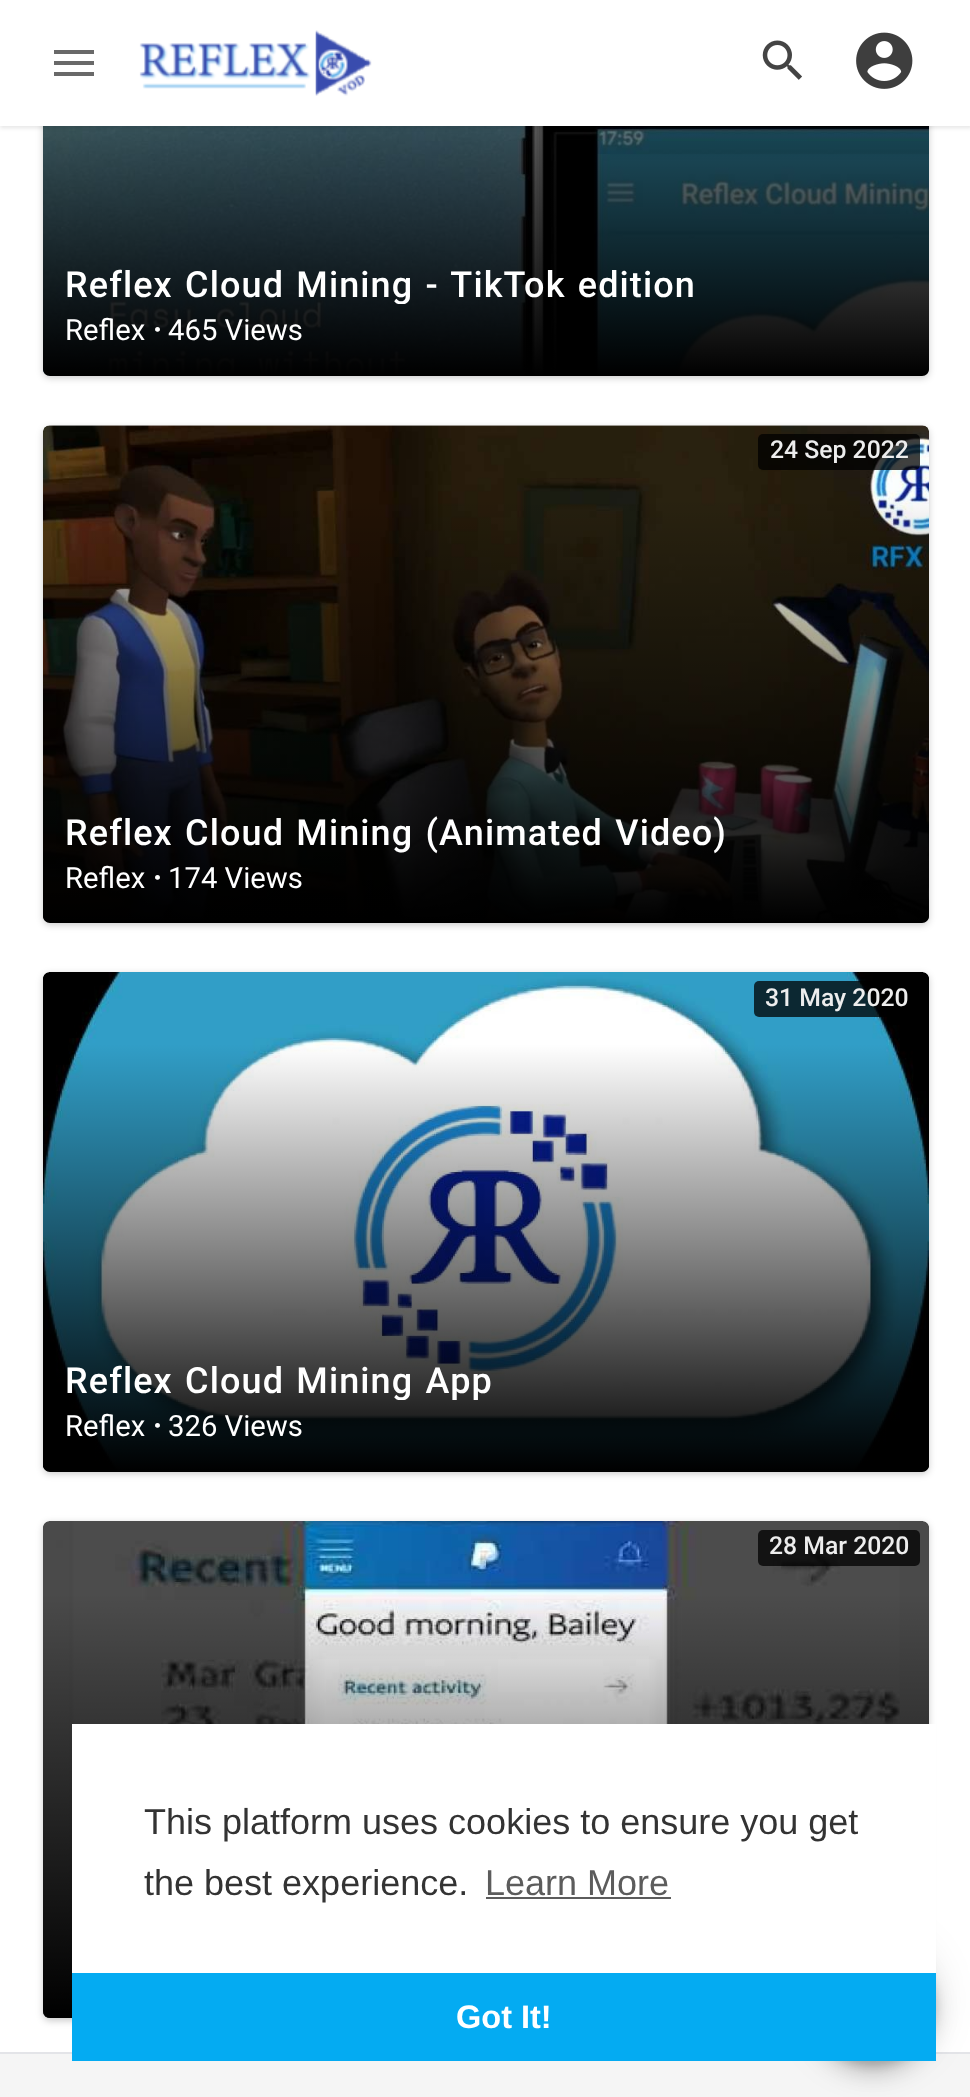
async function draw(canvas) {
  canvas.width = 970
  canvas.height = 2097
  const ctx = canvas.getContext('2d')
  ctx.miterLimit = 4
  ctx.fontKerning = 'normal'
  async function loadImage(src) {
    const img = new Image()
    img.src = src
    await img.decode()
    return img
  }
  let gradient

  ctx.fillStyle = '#f5f5f5'
  ctx.fillRect(0, 0, 970, 2097)
  ctx.fillStyle = '#fff'
  ctx.fillRect(0, 126, 970, 1926)
  ctx.fillStyle = '#00000033'
  ctx.filter = 'blur(3.5px)'
  ctx.beginPath()
  ctx.roundRect(43, -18, 886, 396, 7)
  ctx.fill()
  ctx.filter = 'none'
  ctx.drawImage(await loadImage('image3.png'), 43, 126, 886, 250)
  gradient = ctx.createLinearGradient(486, -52, 486, 376)
  gradient.addColorStop(0, '#00000000')
  gradient.addColorStop(1, '#000')
  ctx.fillStyle = gradient
  ctx.beginPath()
  ctx.moveTo(43, -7)
  ctx.lineTo(929, -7)
  ctx.lineTo(929, 369)
  ctx.bezierCurveTo(929, 373, 926, 376, 922, 376)
  ctx.lineTo(50, 376)
  ctx.bezierCurveTo(46, 376, 43, 373, 43, 369)
  ctx.closePath()
  ctx.fill()
  ctx.fillStyle = '#0000001a'
  ctx.filter = 'blur(2px)'
  ctx.beginPath()
  ctx.rect(0, 2, 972, 126)
  ctx.fill()
  ctx.filter = 'none'
  ctx.fillStyle = '#fff'
  ctx.fillRect(0, 0, 970, 126)
  ctx.fillStyle = '#696969'
  ctx.beginPath()
  ctx.moveTo(54, 50)
  ctx.lineTo(94, 50)
  ctx.lineTo(94, 54)
  ctx.lineTo(54, 54)
  ctx.lineTo(54, 50)
  ctx.moveTo(54, 61)
  ctx.lineTo(94, 61)
  ctx.lineTo(94, 65)
  ctx.lineTo(54, 65)
  ctx.lineTo(54, 61)
  ctx.moveTo(54, 72)
  ctx.lineTo(94, 72)
  ctx.lineTo(94, 76)
  ctx.lineTo(54, 76)
  ctx.closePath()
  ctx.fill()
  ctx.drawImage(await loadImage('image0.png'), 139, 30, 233, 66)
  ctx.drawImage(await loadImage('image1.png'), 762, 40, 40, 40)
  ctx.drawImage(await loadImage('image2.png'), 856, 32, 57, 57)
  ctx.fillStyle = '#e3e4e8'
  ctx.fillRect(0, 2052, 970, 2)
  ctx.save()
  ctx.beginPath()
  ctx.rect(65, 263, 842, 41)
  ctx.clip()
  ctx.letterSpacing = '1.1px'
  ctx.wordSpacing = '2.25px'
  ctx.font = '500 36px Roboto'
  ctx.fillStyle = '#fff'
  ctx.fillText('Reflex Cloud Mining - TikTok edition', 65, 297)
  ctx.restore()
  ctx.font = '29.25px Roboto'
  ctx.fillStyle = '#fff'
  ctx.fillText('Reflex', 65, 340)
  ctx.font = 'bold 29.25px Roboto'
  ctx.fillText('·', 153, 340)
  ctx.font = '29.25px Roboto'
  ctx.fillText('465 Views', 168, 340)
  ctx.fillStyle = '#00000033'
  ctx.filter = 'blur(3.5px)'
  ctx.beginPath()
  ctx.roundRect(43, 428, 886, 497, 7)
  ctx.fill()
  ctx.filter = 'none'
  ctx.drawImage(await loadImage('image4.png'), 43, 425, 886, 498)
  ctx.fillStyle = '#000000bf'
  ctx.beginPath()
  ctx.roundRect(758, 434, 162, 36, 5)
  ctx.fill()
  ctx.font = '500 24.75px Roboto'
  ctx.fillStyle = '#ededed'
  ctx.fillText('24 Sep 2022', 770, 458)
  gradient = ctx.createLinearGradient(486, 497, 486, 923)
  gradient.addColorStop(0, '#00000000')
  gradient.addColorStop(1, '#000')
  ctx.fillStyle = gradient
  ctx.beginPath()
  ctx.roundRect(43, 497, 886, 426, [0, 0, 7, 7])
  ctx.fill()
  ctx.letterSpacing = '1.1px'
  ctx.wordSpacing = '2.25px'
  ctx.font = '500 36px Roboto'
  ctx.fillStyle = '#fff'
  ctx.fillText('Reflex Cloud Mining (Animated Video)', 65, 845)
  ctx.letterSpacing = '0px'
  ctx.wordSpacing = '0px'
  ctx.font = '29.25px Roboto'
  ctx.fillText('Reflex', 65, 888)
  ctx.font = 'bold 29.25px Roboto'
  ctx.fillText('·', 153, 888)
  ctx.font = '29.25px Roboto'
  ctx.fillText('174 Views', 168, 888)
  ctx.fillStyle = '#00000033'
  ctx.filter = 'blur(3.5px)'
  ctx.beginPath()
  ctx.roundRect(43, 974, 886, 500, 7)
  ctx.fill()
  ctx.filter = 'none'
  ctx.drawImage(await loadImage('image5.png'), 43, 972, 886, 500)
  ctx.fillStyle = '#000000bf'
  ctx.beginPath()
  ctx.roundRect(754, 981, 166, 36, 5)
  ctx.fill()
  ctx.font = '500 24.75px Roboto'
  ctx.fillStyle = '#ededed'
  ctx.fillText('31 May 2020', 765, 1006)
  gradient = ctx.createLinearGradient(486, 1044, 486, 1472)
  gradient.addColorStop(0, '#00000000')
  gradient.addColorStop(1, '#000')
  ctx.fillStyle = gradient
  ctx.beginPath()
  ctx.roundRect(43, 1044, 886, 428, [0, 0, 7, 7])
  ctx.fill()
  ctx.save()
  ctx.beginPath()
  ctx.rect(65, 1359, 842, 41)
  ctx.clip()
  ctx.letterSpacing = '1.1px'
  ctx.wordSpacing = '2.25px'
  ctx.font = '500 36px Roboto'
  ctx.fillStyle = '#fff'
  ctx.fillText('Reflex Cloud Mining App', 65, 1393)
  ctx.restore()
  ctx.font = '29.25px Roboto'
  ctx.fillStyle = '#fff'
  ctx.fillText('Reflex', 65, 1436)
  ctx.font = 'bold 29.25px Roboto'
  ctx.fillText('·', 153, 1436)
  ctx.font = '29.25px Roboto'
  ctx.fillText('326 Views', 168, 1436)
  ctx.fillStyle = '#00000033'
  ctx.filter = 'blur(3.5px)'
  ctx.beginPath()
  ctx.roundRect(43, 1523, 886, 498, 7)
  ctx.fill()
  ctx.filter = 'none'
  ctx.drawImage(await loadImage('image6.png'), 43, 1521, 886, 497)
  ctx.fillStyle = '#000000bf'
  ctx.beginPath()
  ctx.roundRect(758, 1530, 162, 36, 5)
  ctx.fill()
  ctx.font = '500 24.75px Roboto'
  ctx.fillStyle = '#ededed'
  ctx.fillText('28 Mar 2020', 769, 1554)
  gradient = ctx.createLinearGradient(486, 1593, 486, 2018)
  gradient.addColorStop(0, '#00000000')
  gradient.addColorStop(1, '#000')
  ctx.fillStyle = gradient
  ctx.beginPath()
  ctx.roundRect(43, 1593, 886, 425, [0, 0, 7, 7])
  ctx.fill()
  ctx.fillStyle = '#0000001f'
  ctx.filter = 'blur(20px)'
  ctx.beginPath()
  ctx.roundRect(810, 1937, 126, 126, 63)
  ctx.fill()
  ctx.filter = 'none'
  ctx.fillStyle = '#00000024'
  ctx.filter = 'blur(11px)'
  ctx.beginPath()
  ctx.roundRect(810, 1949, 126, 126, 63)
  ctx.fill()
  ctx.filter = 'none'
  ctx.fillStyle = '#00000033'
  ctx.filter = 'blur(5.5px)'
  ctx.beginPath()
  ctx.roundRect(812, 1944, 122, 122, 61)
  ctx.fill()
  ctx.filter = 'none'
  ctx.fillStyle = '#fff'
  ctx.fillRect(72, 1724, 864, 249)
  ctx.font = '36px Liberation Sans'
  ctx.fillStyle = '#333'
  ctx.fillText('This platform uses cookies to ensure you get', 144, 1834)
  ctx.fillText('the best experience.', 144, 1895)
  ctx.fillStyle = '#5c5c5c'
  ctx.fillText('Learn More', 485, 1895)
  ctx.fillRect(486, 1897, 185, 2)
  ctx.fillStyle = '#04abf2'
  ctx.fillRect(72, 1973, 864, 88)
  ctx.font = 'bold 32.5px Liberation Sans'
  ctx.fillStyle = '#fff'
  ctx.fillText('Got It!', 456, 2028)
}

draw(document.querySelector('canvas'))
